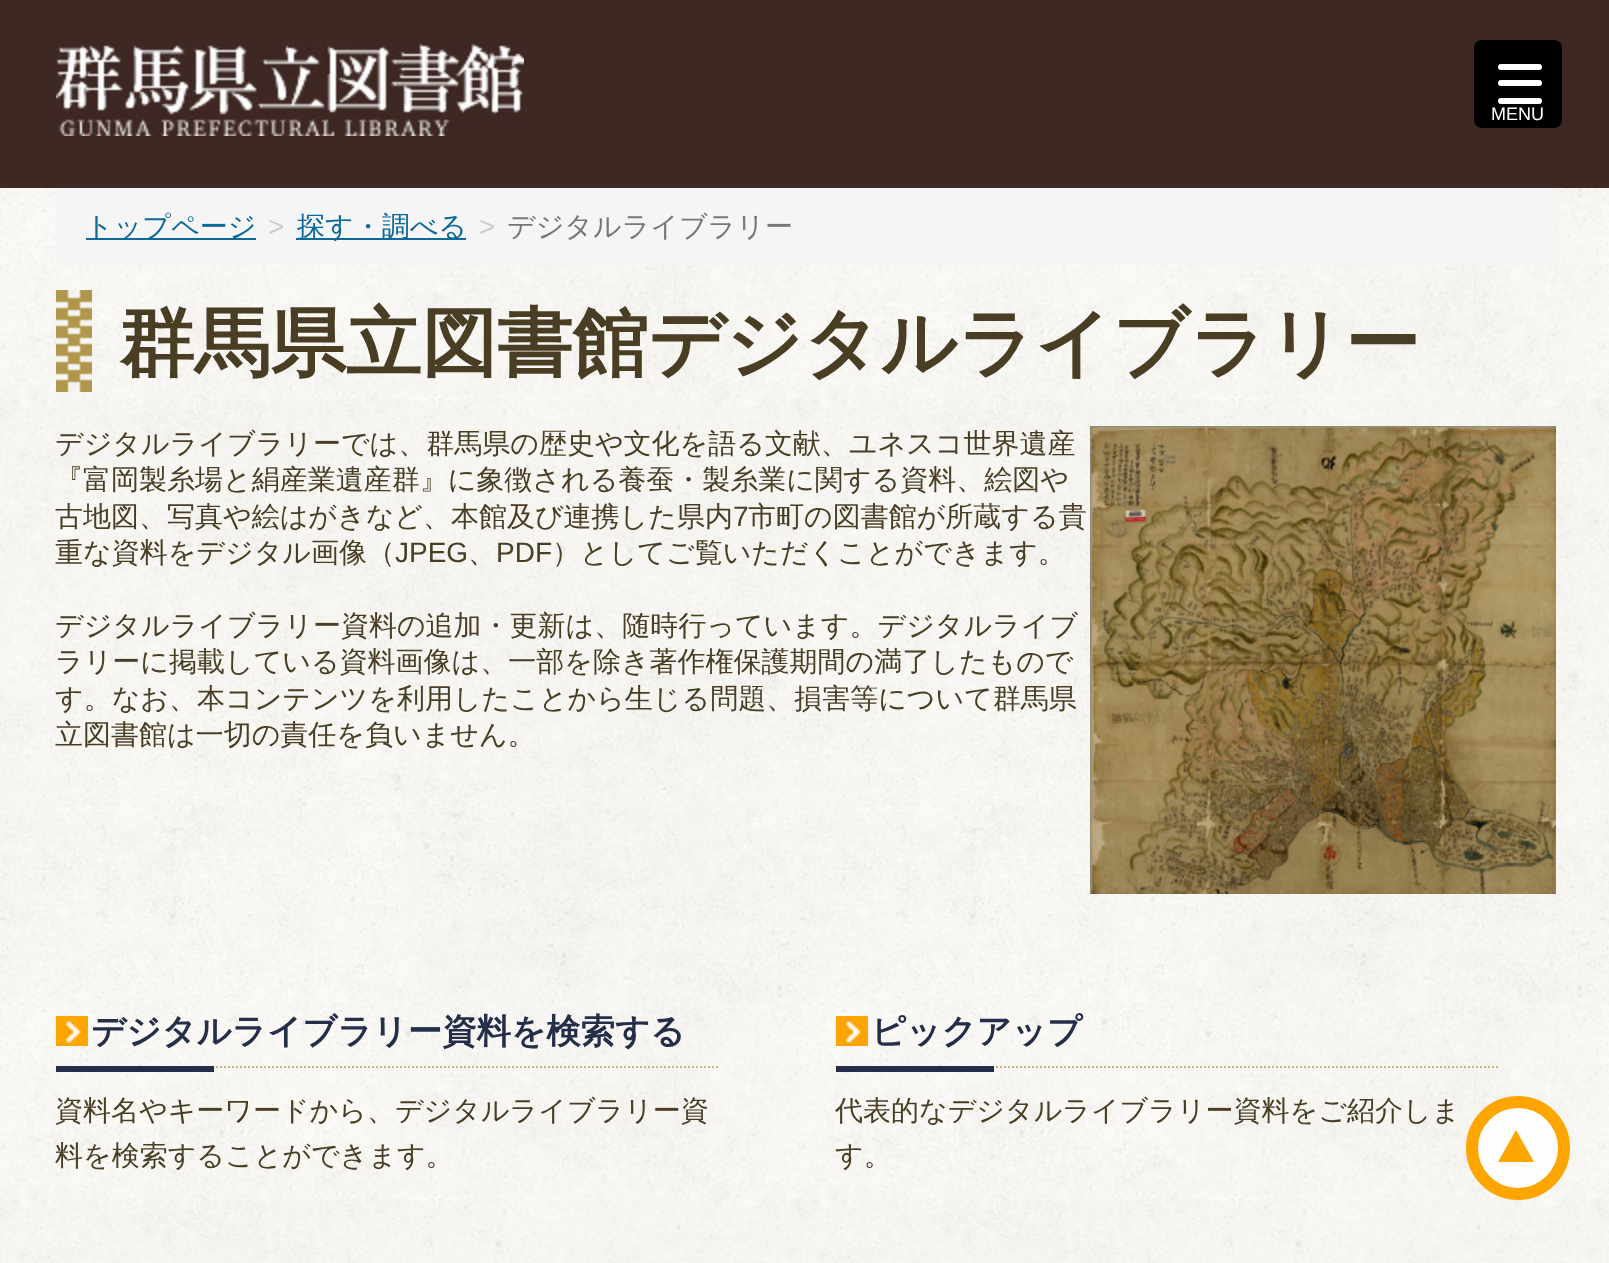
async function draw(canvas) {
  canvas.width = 1609
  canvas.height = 1263
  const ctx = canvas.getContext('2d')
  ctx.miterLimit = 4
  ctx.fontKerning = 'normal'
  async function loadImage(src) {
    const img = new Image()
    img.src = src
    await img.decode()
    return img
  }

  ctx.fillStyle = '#fff'
  ctx.fillRect(0, 0, 1609, 1263)
  ctx.drawImage(await loadImage('image0.png'), 0, 188, 1609, 1075)
  ctx.fillStyle = '#3e2824'
  ctx.fillRect(0, 0, 1609, 188)
  ctx.drawImage(await loadImage('image1.png'), 56, 44, 468, 92)
  ctx.fillStyle = '#000'
  ctx.beginPath()
  ctx.roundRect(1474, 40, 88, 88, 8)
  ctx.fill()
  ctx.fillStyle = '#fff'
  ctx.beginPath()
  ctx.roundRect(1498, 64, 44, 6, 3)
  ctx.fill()
  ctx.beginPath()
  ctx.roundRect(1498, 80, 44, 6, 3)
  ctx.fill()
  ctx.beginPath()
  ctx.roundRect(1498, 98, 44, 6, 3)
  ctx.fill()
  ctx.font = '18px Liberation Sans'
  ctx.fillText('MENU', 1491, 120)
  ctx.fillStyle = '#f5f5f5'
  ctx.beginPath()
  ctx.roundRect(56, 188, 1500, 76, 8)
  ctx.fill()
  ctx.fillStyle = '#0c6998'
  ctx.fillRect(86, 238, 170, 2)
  ctx.font = '500 28px WenQuanYi Zen Hei'
  ctx.fillText('トップページ', 85, 236)
  ctx.font = '28px Liberation Sans'
  ctx.fillStyle = '#ccc'
  ctx.fillText('>', 268, 236)
  ctx.fillStyle = '#0c6998'
  ctx.fillRect(296, 238, 170, 2)
  ctx.font = '500 28px WenQuanYi Zen Hei'
  ctx.fillText('探す・調べる', 297, 236)
  ctx.font = '28px Liberation Sans'
  ctx.fillStyle = '#ccc'
  ctx.fillText('>', 479, 236)
  ctx.font = '500 28px WenQuanYi Zen Hei'
  ctx.fillStyle = '#777'
  ctx.fillText('デジタルライブラリー', 507, 236)
  ctx.drawImage(await loadImage('image2.png'), 56, 290, 36, 102)
  ctx.font = 'bold 75.6px WenQuanYi Zen Hei'
  ctx.fillStyle = '#493d24'
  ctx.fillText('群馬県立図書館デジタルライブラリー', 119, 369)
  ctx.font = '500 28px WenQuanYi Zen Hei'
  ctx.fillText('デジタルライブラリーでは、群馬県の歴史や文化を語る文献、ユネスコ世界遺産', 55, 453)
  ctx.drawImage(await loadImage('image3.png'), 1090, 426, 466, 468)
  ctx.fillText('『富岡製糸場と絹産業遺産群』に象徴される養蚕・製糸業に関する資料、絵図や', 55, 489)
  ctx.fillText('古地図、写真や絵はがきなど、本館及び連携した県内', 55, 526)
  ctx.font = '28px Liberation Sans'
  ctx.fillText('7', 733, 526)
  ctx.font = '500 28px WenQuanYi Zen Hei'
  ctx.fillText('市町の図書館が所蔵する貴', 748, 526)
  ctx.fillText('重な資料をデジタル画像（', 55, 562)
  ctx.font = '28px Liberation Sans'
  ctx.fillText('JPEG', 395, 562)
  ctx.font = '500 28px WenQuanYi Zen Hei'
  ctx.fillText('、', 468, 562)
  ctx.font = '28px Liberation Sans'
  ctx.fillText('PDF', 496, 562)
  ctx.font = '500 28px WenQuanYi Zen Hei'
  ctx.fillText('）としてご覧いただくことができます。', 552, 562)
  ctx.fillText('デジタルライブラリー資料の追加・更新は、随時行っています。デジタルライブ', 55, 635)
  ctx.fillText('ラリーに掲載している資料画像は、一部を除き著作権保護期間の満了したもので', 55, 671)
  ctx.fillText('す。なお、本コンテンツを利用したことから生じる問題、損害等について群馬県', 55, 708)
  ctx.fillText('立図書館は一切の責任を負いません。', 55, 744)
  ctx.drawImage(await loadImage('image4.png'), 56, 1016, 32, 30)
  ctx.beginPath()
  ctx.moveTo(56, 1067)
  ctx.lineTo(720, 1067)
  ctx.strokeStyle = '#d1b281'
  ctx.lineWidth = 2
  ctx.setLineDash([2, 2])
  ctx.stroke()
  ctx.font = 'bold 34.4px WenQuanYi Zen Hei'
  ctx.fillStyle = '#242e49'
  ctx.fillText('デジタルライブラリー資料を検索する', 91, 1043)
  ctx.fillRect(56, 1066, 158, 6)
  ctx.font = '500 28px WenQuanYi Zen Hei'
  ctx.fillStyle = '#493d24'
  ctx.fillText('資料名やキーワードから、デジタルライブラリー資', 55, 1120)
  ctx.fillText('料を検索することができます。', 55, 1165)
  ctx.drawImage(await loadImage('image4.png'), 836, 1016, 32, 30)
  ctx.beginPath()
  ctx.moveTo(836, 1067)
  ctx.lineTo(1500, 1067)
  ctx.stroke()
  ctx.font = 'bold 34.4px WenQuanYi Zen Hei'
  ctx.fillStyle = '#242e49'
  ctx.fillText('ピックアップ', 871, 1043)
  ctx.fillRect(836, 1066, 158, 6)
  ctx.font = '500 28px WenQuanYi Zen Hei'
  ctx.fillStyle = '#493d24'
  ctx.fillText('代表的なデジタルライブラリー資料をご紹介しま', 835, 1120)
  ctx.fillText('す。', 835, 1165)
  ctx.fillStyle = '#ffffffe6'
  ctx.beginPath()
  ctx.arc(1518, 1148, 46, 0, 2 * Math.PI)
  ctx.fill()
  ctx.strokeStyle = '#ffa500'
  ctx.lineWidth = 12
  ctx.setLineDash([])
  ctx.stroke()
  ctx.fillStyle = '#ffa500'
  ctx.beginPath()
  ctx.moveTo(1534, 1162)
  ctx.lineTo(1498, 1162)
  ctx.lineTo(1516, 1130)
  ctx.closePath()
  ctx.fill()
}

draw(document.querySelector('canvas'))
